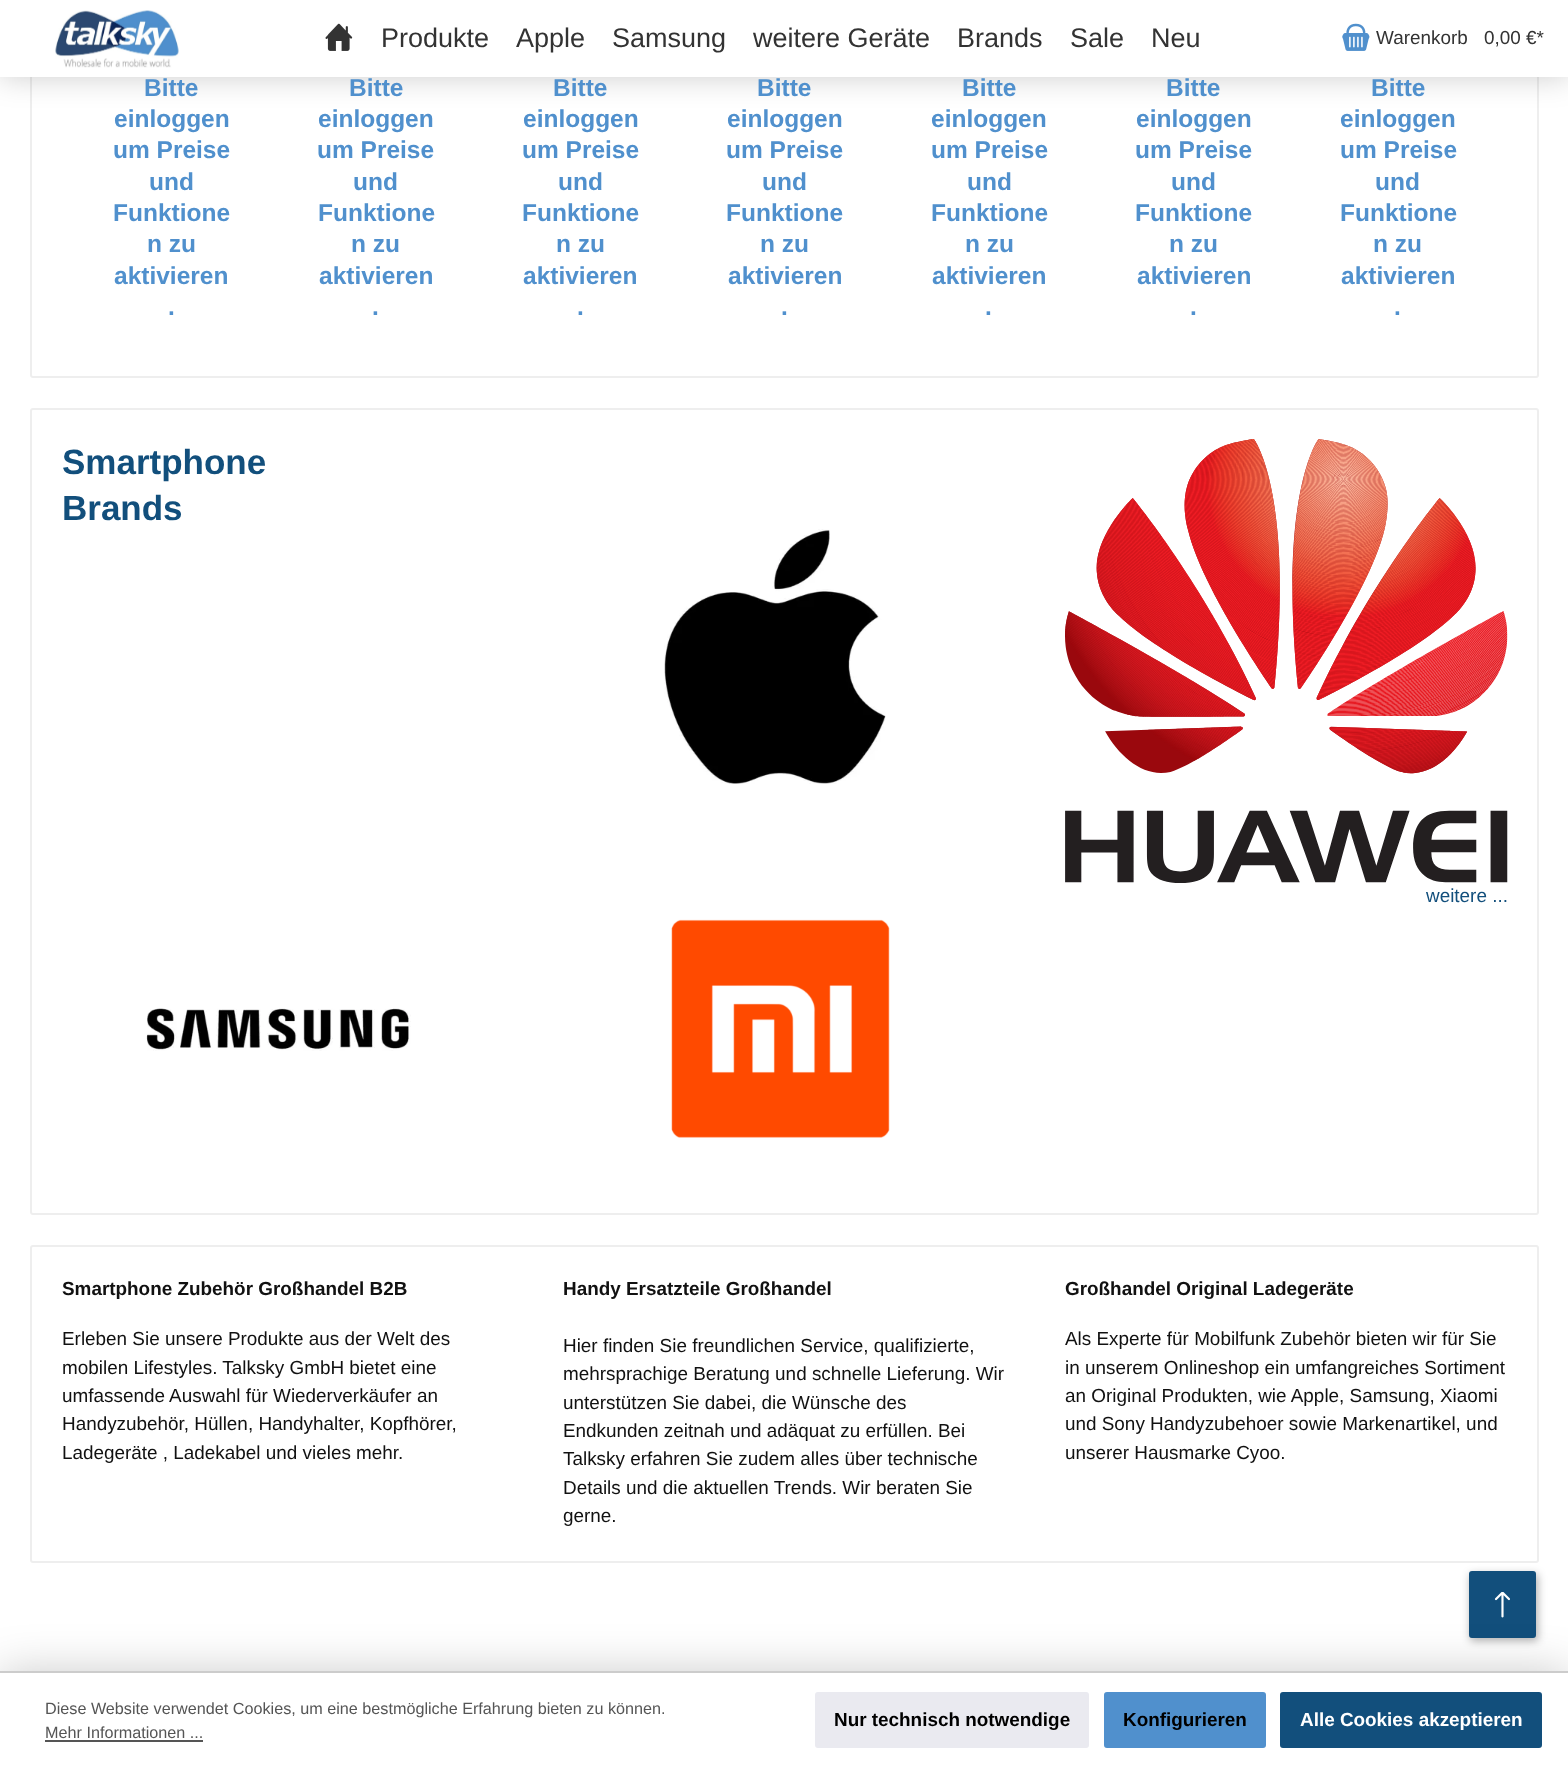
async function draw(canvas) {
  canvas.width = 1568
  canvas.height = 1766
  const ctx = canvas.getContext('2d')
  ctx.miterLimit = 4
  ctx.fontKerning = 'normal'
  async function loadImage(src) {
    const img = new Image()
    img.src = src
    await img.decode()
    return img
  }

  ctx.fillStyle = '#fff'
  ctx.fillRect(0, 0, 1568, 1766)
  ctx.beginPath()
  ctx.roundRect(31, -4, 1507, 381, 2)
  ctx.strokeStyle = '#eee'
  ctx.lineWidth = 2
  ctx.stroke()
  ctx.fillStyle = '#00000033'
  ctx.filter = 'blur(15px)'
  ctx.beginPath()
  ctx.rect(0, 0, 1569, 77)
  ctx.fill()
  ctx.filter = 'none'
  ctx.fillStyle = '#fff'
  ctx.fillRect(0, 0, 1568, 77)
  ctx.drawImage(await loadImage('image0.png'), 325, 23, 28, 28)
  ctx.font = '27px Liberation Sans'
  ctx.fillStyle = '#333'
  ctx.fillText('Produkte', 381, 47)
  ctx.fillText('Apple', 516, 47)
  ctx.fillText('Samsung', 612, 47)
  ctx.fillText('weitere Geräte', 753, 47)
  ctx.fillText('Brands', 957, 47)
  ctx.fillText('Sale', 1070, 47)
  ctx.fillText('Neu', 1151, 47)
  ctx.drawImage(await loadImage('image1.png'), 55, 10, 124, 58)
  ctx.drawImage(await loadImage('image2.png'), 1342, 23, 28, 28)
  ctx.font = '18.9px Liberation Sans'
  ctx.fillText('Warenkorb', 1376, 44)
  ctx.fillText('0,00 €*', 1484, 44)
  ctx.font = 'bold 24.5px Liberation Sans'
  ctx.fillStyle = '#5090cd'
  ctx.fillText('Bitte', 144, 96)
  ctx.fillText('einloggen', 114, 127)
  ctx.fillText('um Preise', 113, 158)
  ctx.fillText('und', 149, 190)
  ctx.fillText('Funktione', 113, 221)
  ctx.fillText('n zu', 147, 252)
  ctx.fillText('aktivieren', 114, 284)
  ctx.fillText('.', 168, 315)
  ctx.fillText('Bitte', 349, 96)
  ctx.fillText('einloggen', 318, 127)
  ctx.fillText('um Preise', 317, 158)
  ctx.fillText('und', 353, 190)
  ctx.fillText('Funktione', 318, 221)
  ctx.fillText('n zu', 351, 252)
  ctx.fillText('aktivieren', 319, 284)
  ctx.fillText('.', 372, 315)
  ctx.fillText('Bitte', 553, 96)
  ctx.fillText('einloggen', 523, 127)
  ctx.fillText('um Preise', 522, 158)
  ctx.fillText('und', 558, 190)
  ctx.fillText('Funktione', 522, 221)
  ctx.fillText('n zu', 556, 252)
  ctx.fillText('aktivieren', 523, 284)
  ctx.fillText('.', 577, 315)
  ctx.fillText('Bitte', 757, 96)
  ctx.fillText('einloggen', 727, 127)
  ctx.fillText('um Preise', 726, 158)
  ctx.fillText('und', 762, 190)
  ctx.fillText('Funktione', 726, 221)
  ctx.fillText('n zu', 760, 252)
  ctx.fillText('aktivieren', 728, 284)
  ctx.fillText('.', 781, 315)
  ctx.fillText('Bitte', 962, 96)
  ctx.fillText('einloggen', 931, 127)
  ctx.fillText('um Preise', 931, 158)
  ctx.fillText('und', 967, 190)
  ctx.fillText('Funktione', 931, 221)
  ctx.fillText('n zu', 965, 252)
  ctx.fillText('aktivieren', 932, 284)
  ctx.fillText('.', 985, 315)
  ctx.fillText('Bitte', 1166, 96)
  ctx.fillText('einloggen', 1136, 127)
  ctx.fillText('um Preise', 1135, 158)
  ctx.fillText('und', 1171, 190)
  ctx.fillText('Funktione', 1135, 221)
  ctx.fillText('n zu', 1169, 252)
  ctx.fillText('aktivieren', 1137, 284)
  ctx.fillText('.', 1190, 315)
  ctx.fillText('Bitte', 1371, 96)
  ctx.fillText('einloggen', 1340, 127)
  ctx.fillText('um Preise', 1340, 158)
  ctx.fillText('und', 1375, 190)
  ctx.fillText('Funktione', 1340, 221)
  ctx.fillText('n zu', 1373, 252)
  ctx.fillText('aktivieren', 1341, 284)
  ctx.fillText('.', 1394, 315)
  ctx.beginPath()
  ctx.roundRect(31, 409, 1507, 805, 2)
  ctx.stroke()
  ctx.font = 'bold 35px Liberation Sans'
  ctx.fillStyle = '#124f7c'
  ctx.fillText('Smartphone', 62, 474)
  ctx.fillText('Brands', 62, 520)
  ctx.drawImage(await loadImage('image3.png'), 1065, 439, 443, 444)
  ctx.drawImage(await loadImage('image4.png'), 664, 529, 222, 255)
  ctx.font = '18.9px Liberation Sans'
  ctx.fillText('weitere ...', 1426, 902)
  ctx.drawImage(await loadImage('image5.png'), 146, 1008, 265, 43)
  ctx.drawImage(await loadImage('image6.png'), 671, 919, 219, 219)
  ctx.beginPath()
  ctx.roundRect(31, 1246, 1507, 316, 2)
  ctx.stroke()
  ctx.font = 'bold 18.9px Liberation Sans'
  ctx.fillStyle = '#111'
  ctx.fillText('Smartphone Zubehör Großhandel B2B', 62, 1295)
  ctx.font = '18.9px Liberation Sans'
  ctx.fillText('Erleben Sie unsere Produkte aus der Welt des', 62, 1345)
  ctx.fillText('mobilen Lifestyles. Talksky GmbH bietet eine', 62, 1374)
  ctx.fillText('umfassende Auswahl für Wiederverkäufer an', 62, 1402)
  ctx.fillText('Handyzubehör, Hüllen, Handyhalter, Kopfhörer,', 62, 1430)
  ctx.fillText('Ladegeräte , Ladekabel und vieles mehr.', 62, 1459)
  ctx.font = 'bold 18.9px Liberation Sans'
  ctx.fillText('Handy Ersatzteile Großhandel', 563, 1295)
  ctx.font = '18.9px Liberation Sans'
  ctx.fillText('Hier finden Sie freundlichen Service, qualifizierte,', 563, 1352)
  ctx.fillText('mehrsprachige Beratung und schnelle Lieferung. Wir', 563, 1380)
  ctx.fillText('unterstützen Sie dabei, die Wünsche des', 563, 1409)
  ctx.fillText('Endkunden zeitnah und adäquat zu erfüllen. Bei', 563, 1437)
  ctx.fillText('Talksky erfahren Sie zudem alles über technische', 563, 1465)
  ctx.fillText('Details und die aktuellen Trends. Wir beraten Sie', 563, 1494)
  ctx.fillText('gerne.', 563, 1522)
  ctx.font = 'bold 18.9px Liberation Sans'
  ctx.fillText('Großhandel Original Ladegeräte', 1065, 1295)
  ctx.font = '18.9px Liberation Sans'
  ctx.fillText('Als Experte für Mobilfunk Zubehör bieten wir für Sie', 1065, 1345)
  ctx.fillText('in unserem Onlineshop ein umfangreiches Sortiment', 1065, 1374)
  ctx.fillText('an Original Produkten, wie Apple, Samsung, Xiaomi', 1065, 1402)
  ctx.fillText('und Sony Handyzubehoer sowie Markenartikel, und', 1065, 1430)
  ctx.fillText('unserer Hausmarke Cyoo.', 1065, 1459)
  ctx.fillStyle = '#0000004d'
  ctx.filter = 'blur(4.5px)'
  ctx.beginPath()
  ctx.roundRect(1470, 1574, 68, 67, 3)
  ctx.fill()
  ctx.filter = 'none'
  ctx.fillStyle = '#124f7c'
  ctx.beginPath()
  ctx.roundRect(1470, 1572, 65, 65, 2)
  ctx.fill()
  ctx.strokeStyle = '#124f7c'
  ctx.stroke()
  ctx.drawImage(await loadImage('image7.png'), 1494, 1592, 16, 26)
  ctx.fillStyle = '#00000033'
  ctx.filter = 'blur(22.5px)'
  ctx.beginPath()
  ctx.rect(0, 1671, 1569, 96)
  ctx.fill()
  ctx.filter = 'none'
  ctx.fillStyle = '#fff'
  ctx.fillRect(0, 1673, 1568, 93)
  ctx.fillStyle = '#ccc'
  ctx.fillRect(0, 1671, 1568, 2)
  ctx.font = '16.2px Liberation Sans'
  ctx.fillStyle = '#555'
  ctx.fillText('Diese Website verwendet Cookies, um eine bestmögliche Erfahrung bieten zu können.', 45, 1714)
  ctx.fillText('Mehr Informationen ...', 45, 1738)
  ctx.fillRect(45, 1740, 158, 2)
  ctx.fillStyle = '#eaeaf0'
  ctx.beginPath()
  ctx.roundRect(816, 1693, 272, 54, 2)
  ctx.fill()
  ctx.strokeStyle = '#eaeaf0'
  ctx.stroke()
  ctx.font = 'bold 18.9px Liberation Sans'
  ctx.fillStyle = '#000'
  ctx.fillText('Nur technisch notwendige', 834, 1726)
  ctx.fillStyle = '#5090cd'
  ctx.beginPath()
  ctx.roundRect(1105, 1693, 160, 54, 2)
  ctx.fill()
  ctx.strokeStyle = '#5090cd'
  ctx.stroke()
  ctx.fillStyle = '#000'
  ctx.fillText('Konfigurieren', 1123, 1726)
  ctx.fillStyle = '#124f7c'
  ctx.beginPath()
  ctx.roundRect(1281, 1693, 260, 54, 2)
  ctx.fill()
  ctx.strokeStyle = '#124f7c'
  ctx.stroke()
  ctx.fillStyle = '#fff'
  ctx.fillText('Alle Cookies akzeptieren', 1300, 1726)
}

draw(document.querySelector('canvas'))
